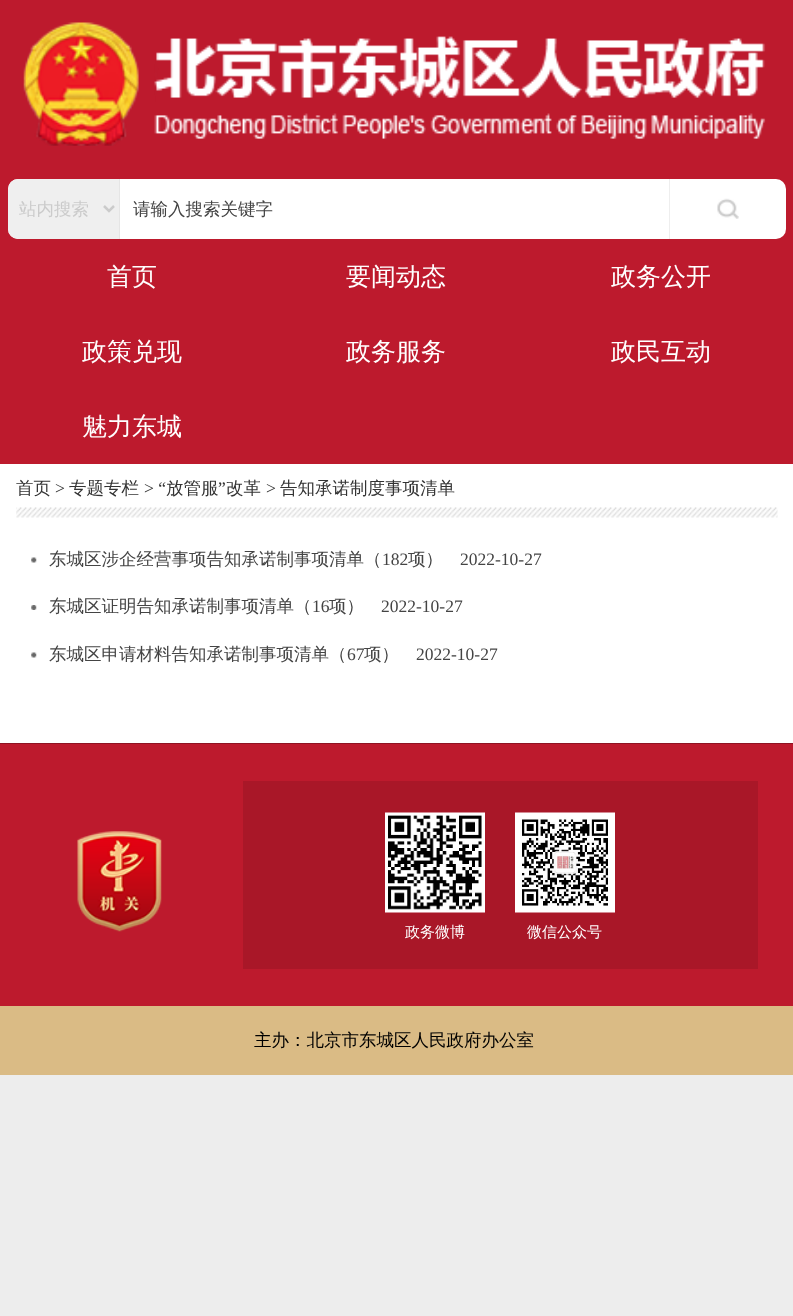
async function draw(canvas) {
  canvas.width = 793
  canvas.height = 1316
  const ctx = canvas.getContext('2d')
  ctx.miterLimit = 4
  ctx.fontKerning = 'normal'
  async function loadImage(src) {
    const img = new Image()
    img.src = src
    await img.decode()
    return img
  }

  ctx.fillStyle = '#ededed'
  ctx.fillRect(0, 0, 793, 1316)
  ctx.fillStyle = '#bd1a2d'
  ctx.fillRect(0, 0, 793, 464)
  ctx.drawImage(await loadImage('image0.png'), 23, 22, 743, 124)
  ctx.fillStyle = '#fff'
  ctx.beginPath()
  ctx.roundRect(8, 179, 778, 60, 10)
  ctx.fill()
  ctx.fillStyle = '#efefef'
  ctx.beginPath()
  ctx.roundRect(8, 179, 112, 60, [10, 0, 0, 10])
  ctx.fill()
  ctx.fillStyle = '#e5e5e5'
  ctx.fillRect(119, 179, 1, 60)
  ctx.beginPath()
  ctx.moveTo(104, 206)
  ctx.lineTo(109, 211)
  ctx.lineTo(114, 206)
  ctx.strokeStyle = '#cbcbcb'
  ctx.lineWidth = 2.5
  ctx.stroke()
  ctx.font = '500 17.5px WenQuanYi Zen Hei'
  ctx.fillStyle = '#cbcbcb'
  ctx.fillText('站内搜索', 19, 215)
  ctx.fillStyle = '#444'
  ctx.fillText('请输入搜索关键字', 133, 215)
  ctx.drawImage(await loadImage('image1.png'), 717, 198, 22, 21)
  ctx.fillStyle = '#eee'
  ctx.fillRect(669, 179, 1, 60)
  ctx.font = '500 25px WenQuanYi Zen Hei'
  ctx.fillStyle = '#fff'
  ctx.fillText('首页', 107, 285)
  ctx.fillText('要闻动态', 346, 285)
  ctx.fillText('政务公开', 611, 285)
  ctx.fillText('政策兑现', 82, 360)
  ctx.fillText('政务服务', 346, 360)
  ctx.fillText('政民互动', 611, 360)
  ctx.fillText('魅力东城', 82, 435)
  ctx.fillRect(0, 464, 793, 279)
  ctx.font = '500 17.5px WenQuanYi Zen Hei'
  ctx.fillStyle = '#333'
  ctx.fillText('首页', 16, 494)
  ctx.font = '17.5px Liberation Serif'
  ctx.fillText('>', 55, 494)
  ctx.font = '500 17.5px WenQuanYi Zen Hei'
  ctx.fillText('专题专栏', 69, 494)
  ctx.font = '17.5px Liberation Serif'
  ctx.fillText('> “', 144, 494)
  ctx.font = '500 17.5px WenQuanYi Zen Hei'
  ctx.fillText('放管服', 166, 494)
  ctx.font = '17.5px Liberation Serif'
  ctx.fillText('”', 218, 494)
  ctx.font = '500 17.5px WenQuanYi Zen Hei'
  ctx.fillText('改革', 226, 494)
  ctx.font = '17.5px Liberation Serif'
  ctx.fillText('>', 266, 494)
  ctx.font = '500 17.5px WenQuanYi Zen Hei'
  ctx.fillText('告知承诺制度事项清单', 280, 494)
  ctx.drawImage(await loadImage('image2.png'), 16, 507, 762, 11)
  ctx.beginPath()
  ctx.moveTo(27.5, 704.5)
  ctx.lineTo(766, 704.5)
  ctx.strokeStyle = '#dcdcdc'
  ctx.lineWidth = 1.2
  ctx.setLineDash([3.75, 2.48])
  ctx.stroke()
  ctx.drawImage(await loadImage('image3.png'), 31, 557, 6, 6)
  ctx.fillStyle = '#444'
  ctx.fillText('东城区涉企经营事项告知承诺制事项清单（', 49, 565)
  ctx.font = '17.5px Liberation Serif'
  ctx.fillText('182', 382, 565)
  ctx.font = '500 17.5px WenQuanYi Zen Hei'
  ctx.fillText('项）', 408, 565)
  ctx.font = '17.5px Liberation Serif'
  ctx.fillText('2022-10-27', 460, 565)
  ctx.drawImage(await loadImage('image4.png'), 31, 605, 6, 5)
  ctx.font = '500 17.5px WenQuanYi Zen Hei'
  ctx.fillText('东城区证明告知承诺制事项清单（', 49, 612)
  ctx.font = '17.5px Liberation Serif'
  ctx.fillText('16', 312, 612)
  ctx.font = '500 17.5px WenQuanYi Zen Hei'
  ctx.fillText('项）', 329, 612)
  ctx.font = '17.5px Liberation Serif'
  ctx.fillText('2022-10-27', 381, 612)
  ctx.drawImage(await loadImage('image3.png'), 31, 652, 6, 6)
  ctx.font = '500 17.5px WenQuanYi Zen Hei'
  ctx.fillText('东城区申请材料告知承诺制事项清单（', 49, 660)
  ctx.font = '17.5px Liberation Serif'
  ctx.fillText('67', 347, 660)
  ctx.font = '500 17.5px WenQuanYi Zen Hei'
  ctx.fillText('项）', 364, 660)
  ctx.font = '17.5px Liberation Serif'
  ctx.fillText('2022-10-27', 416, 660)
  ctx.fillStyle = '#fff'
  ctx.fillRect(27, 704, 739, 1)
  ctx.fillStyle = '#bd1a2d'
  ctx.fillRect(0, 744, 793, 262)
  ctx.fillStyle = '#8f1322'
  ctx.fillRect(0, 743, 793, 1)
  ctx.drawImage(await loadImage('image5.png'), 77, 831, 85, 101)
  ctx.fillStyle = '#a91728'
  ctx.fillRect(243, 781, 515, 188)
  ctx.drawImage(await loadImage('image6.png'), 385, 812, 100, 101)
  ctx.font = '500 15px WenQuanYi Zen Hei'
  ctx.fillStyle = '#fff'
  ctx.fillText('政务微博', 405, 937)
  ctx.drawImage(await loadImage('image7.png'), 515, 812, 100, 101)
  ctx.fillText('微信公众号', 527, 937)
  ctx.fillStyle = '#dabb85'
  ctx.fillRect(0, 1006, 793, 69)
  ctx.font = '500 17.5px WenQuanYi Zen Hei'
  ctx.fillStyle = '#000'
  ctx.fillText('主办：北京市东城区人民政府办公室', 254, 1046)
}

draw(document.querySelector('canvas'))
